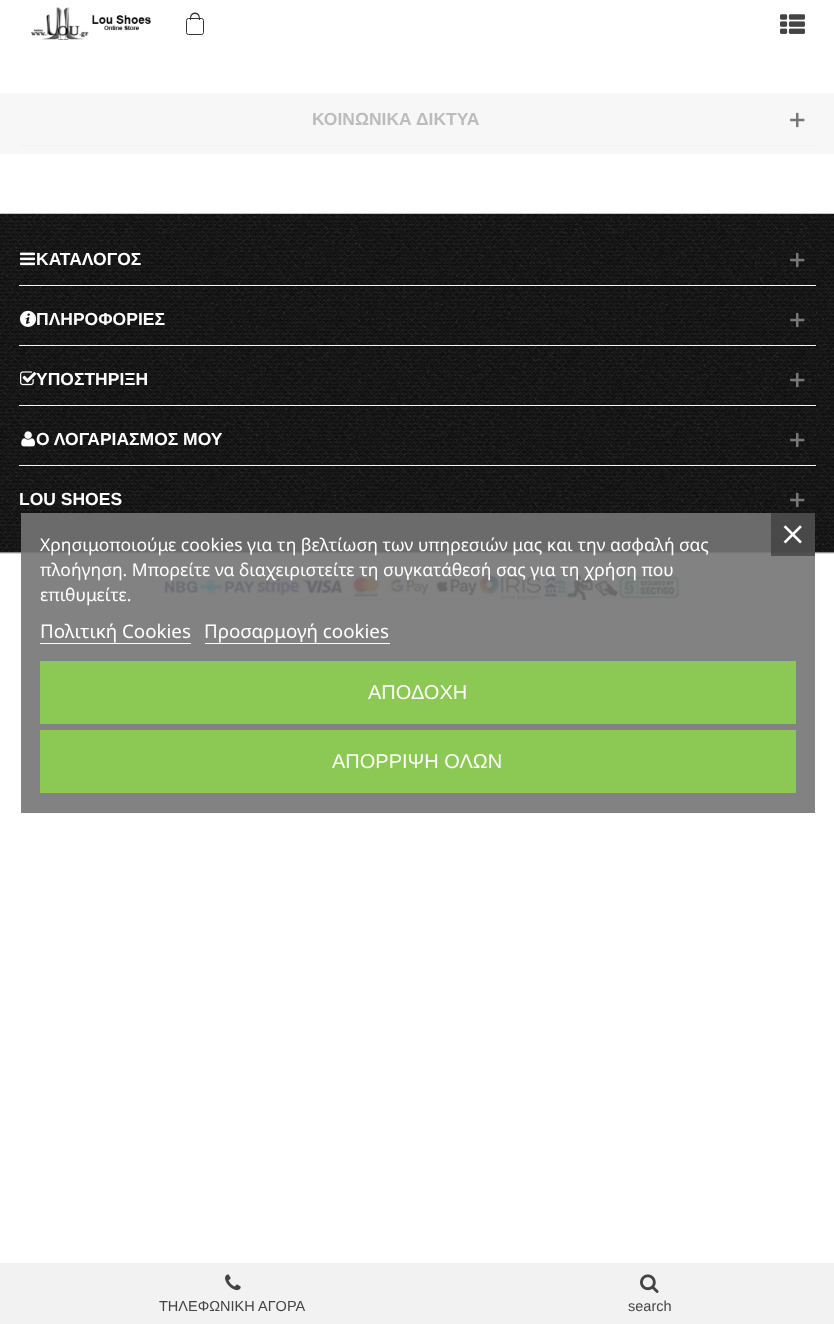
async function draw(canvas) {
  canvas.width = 834
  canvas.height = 1324
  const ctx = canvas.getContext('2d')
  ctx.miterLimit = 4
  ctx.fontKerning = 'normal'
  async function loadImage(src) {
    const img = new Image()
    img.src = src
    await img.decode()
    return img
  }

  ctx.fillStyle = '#fff'
  ctx.fillRect(0, 0, 834, 1324)
  ctx.drawImage(await loadImage('image0.png'), 31, 7, 121, 33)
  ctx.beginPath()
  ctx.roundRect(186.5, 18.5, 17, 16, 2)
  ctx.strokeStyle = '#333'
  ctx.stroke()
  ctx.fillStyle = '#333'
  ctx.beginPath()
  ctx.moveTo(195, 12.5)
  ctx.bezierCurveTo(199.5, 12.5, 200, 16.5, 200, 20)
  ctx.lineTo(190, 20)
  ctx.bezierCurveTo(190, 16.5, 190.5, 12.5, 195, 12.5)
  ctx.closePath()
  ctx.moveTo(195, 14)
  ctx.bezierCurveTo(198.5, 14, 199, 17.5, 199, 20)
  ctx.lineTo(191, 20)
  ctx.bezierCurveTo(191, 17.5, 191.5, 14, 195, 14)
  ctx.closePath()
  ctx.fill('evenodd')
  ctx.drawImage(await loadImage('image1.png'), 780, 14, 25, 20)
  ctx.fillStyle = '#f7f7f7'
  ctx.fillRect(0, 93, 834, 61)
  ctx.fillStyle = '#f2f2f2'
  ctx.fillRect(19, 145, 797, 1)
  ctx.font = 'bold 17.5px Liberation Sans'
  ctx.fillStyle = '#bcbcbc'
  ctx.fillText('ΚΟΙΝΩΝΙΚΑ ΔΙΚΤΥΑ', 312, 125)
  ctx.drawImage(await loadImage('image2.png'), 790, 112, 15, 16)
  ctx.drawImage(await loadImage('image3.png'), 0, 213, 834, 340)
  ctx.fillStyle = '#f2f2f2'
  ctx.fillRect(19, 285, 797, 1)
  ctx.drawImage(await loadImage('image4.png'), 20, 252, 15, 14)
  ctx.fillStyle = '#fff'
  ctx.fillText('ΚΑΤΑΛΟΓΟΣ', 36, 265)
  ctx.drawImage(await loadImage('image5.png'), 790, 252, 15, 16)
  ctx.fillStyle = '#f2f2f2'
  ctx.fillRect(19, 345, 797, 1)
  ctx.drawImage(await loadImage('image6.png'), 20, 310, 17, 17)
  ctx.fillStyle = '#fff'
  ctx.fillText('ΠΛΗΡΟΦΟΡΙΕΣ', 36, 325)
  ctx.drawImage(await loadImage('image7.png'), 790, 312, 15, 16)
  ctx.fillStyle = '#f2f2f2'
  ctx.fillRect(19, 405, 797, 1)
  ctx.drawImage(await loadImage('image8.png'), 20, 371, 17, 15)
  ctx.fillStyle = '#fff'
  ctx.fillText('ΥΠΟΣΤΗΡΙΞΗ', 36, 385)
  ctx.drawImage(await loadImage('image9.png'), 790, 372, 15, 16)
  ctx.fillStyle = '#f2f2f2'
  ctx.fillRect(19, 465, 797, 1)
  ctx.drawImage(await loadImage('image10.png'), 21, 431, 14, 16)
  ctx.fillStyle = '#fff'
  ctx.fillText('Ο ΛΟΓΑΡΙΑΣΜΟΣ ΜΟΥ', 36, 445)
  ctx.drawImage(await loadImage('image11.png'), 790, 432, 15, 16)
  ctx.fillText('LOU SHOES', 19, 505)
  ctx.drawImage(await loadImage('image12.png'), 790, 492, 15, 16)
  ctx.fillStyle = '#dadada'
  ctx.fillRect(0, 553, 834, 1)
  ctx.drawImage(await loadImage('image14.png'), 155, 575, 525, 25)
  ctx.fillStyle = '#747474e6'
  ctx.fillRect(21, 513, 794, 300)
  ctx.font = '17.5px Noto Sans'
  ctx.fillStyle = '#fff'
  ctx.fillText('Χρησιμοποιούμε cookies για τη βελτίωση των υπηρεσιών μας και την ασφαλή σας', 40, 551)
  ctx.fillText('πλοήγηση. Μπορείτε να διαχειριστείτε τη συγκατάθεσή σας για τη χρήση που', 40, 576)
  ctx.fillText('επιθυμείτε.', 40, 601)
  ctx.font = '18.75px Noto Sans'
  ctx.fillText('Πολιτική Cookies', 40, 638)
  ctx.fillRect(40, 643, 151, 1)
  ctx.fillText('Προσαρμογή cookies', 204, 638)
  ctx.fillRect(205, 643, 185, 1)
  ctx.fillStyle = '#8bc954'
  ctx.fillRect(40, 661, 756, 63)
  ctx.font = '20px Liberation Sans'
  ctx.fillStyle = '#fff'
  ctx.fillText('ΑΠΟΔΟΧΗ', 368, 699)
  ctx.fillStyle = '#8bc954'
  ctx.fillRect(40, 730, 756, 63)
  ctx.fillStyle = '#fff'
  ctx.fillText('ΑΠΟΡΡΙΨΗ ΟΛΩΝ', 332, 768)
  ctx.fillStyle = '#3b3b3bb3'
  ctx.fillRect(771, 513, 44, 43)
  ctx.drawImage(await loadImage('image13.png'), 783, 525, 19, 19)
  ctx.fillStyle = '#f2f2f2'
  ctx.fillRect(0, 1263, 834, 61)
  ctx.drawImage(await loadImage('image15.png'), 225, 1274, 16, 17)
  ctx.font = '14.5px Liberation Sans'
  ctx.fillStyle = '#444'
  ctx.fillText('ΤΗΛΕΦΩΝΙΚΗ ΑΓΟΡΑ', 159, 1311)
  ctx.drawImage(await loadImage('image16.png'), 640, 1274, 19, 19)
  ctx.fillText('search', 628, 1311)
}

draw(document.querySelector('canvas'))
